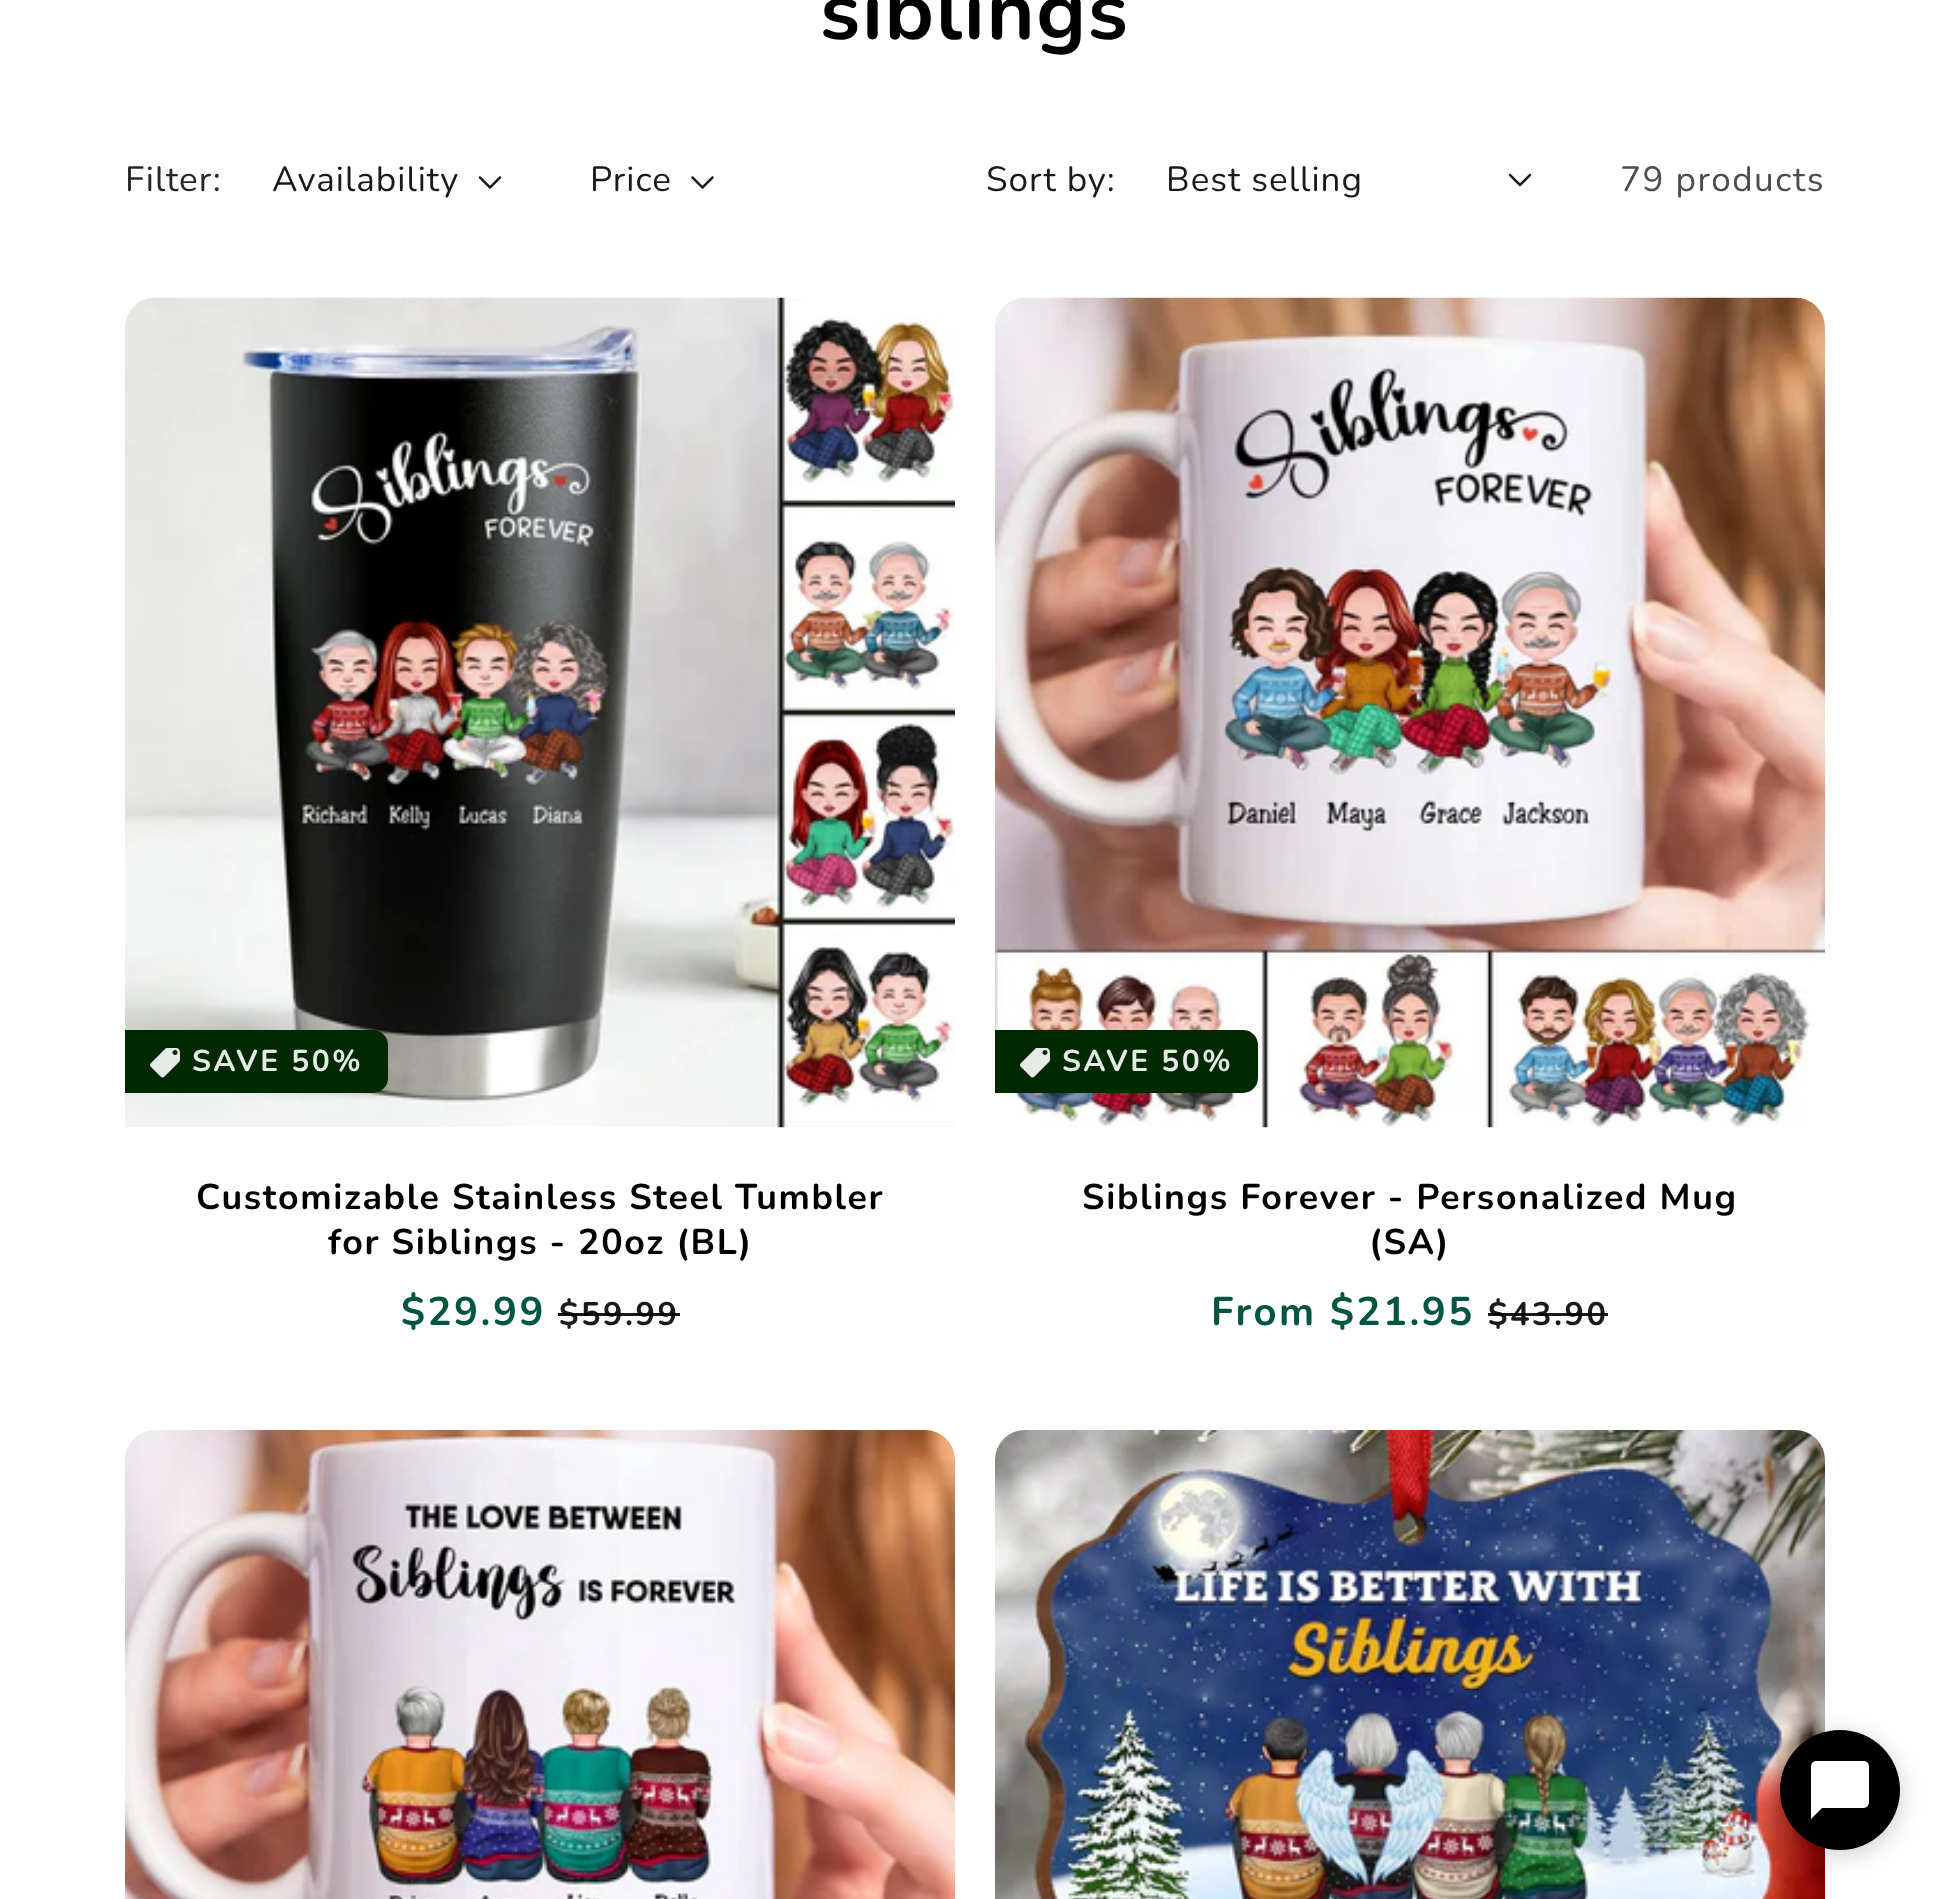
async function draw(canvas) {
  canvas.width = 1950
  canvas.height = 1899
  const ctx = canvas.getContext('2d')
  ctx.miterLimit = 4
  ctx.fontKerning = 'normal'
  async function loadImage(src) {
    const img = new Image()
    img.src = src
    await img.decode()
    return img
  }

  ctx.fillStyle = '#fff'
  ctx.fillRect(0, 0, 1950, 1899)
  ctx.letterSpacing = '1.65px'
  ctx.font = 'bold 82.5px Nunito'
  ctx.fillStyle = '#000'
  ctx.fillText('siblings', 820, 39)
  ctx.letterSpacing = '1px'
  ctx.font = '35px Nunito'
  ctx.fillStyle = '#262626'
  ctx.fillText('Filter:', 125, 191)
  ctx.fillStyle = '#1a1a1a'
  ctx.fillText('Availability', 272, 191)
  ctx.drawImage(await loadImage('image0.png'), 478, 176, 24, 13)
  ctx.fillText('Price', 590, 191)
  ctx.drawImage(await loadImage('image1.png'), 691, 176, 23, 13)
  ctx.fillText('Sort by:', 986, 191)
  ctx.fillText('Best selling', 1166, 191)
  ctx.drawImage(await loadImage('image2.png'), 1508, 173, 24, 14)
  ctx.letterSpacing = '1.5px'
  ctx.fillStyle = '#4d4d4d'
  ctx.fillText('79 products', 1620, 191)
  ctx.drawImage(await loadImage('image3.png'), 125, 297, 830, 831)
  ctx.fillStyle = '#012900'
  ctx.beginPath()
  ctx.roundRect(126.5, 1031.5, 260, 60, [0, 13.5, 13.5, 0])
  ctx.fill()
  ctx.strokeStyle = '#012900'
  ctx.lineWidth = 3
  ctx.stroke()
  ctx.drawImage(await loadImage('image4.png'), 150, 1048, 30, 30)
  ctx.letterSpacing = '2.5px'
  ctx.font = 'bold 30px Nunito'
  ctx.fillStyle = '#e6eae6'
  ctx.fillText('SAVE 50%', 192, 1071)
  ctx.letterSpacing = '1.65px'
  ctx.font = 'bold 35.75px Nunito'
  ctx.fillStyle = '#000'
  ctx.fillText('Customizable Stainless Steel Tumbler', 196, 1209)
  ctx.fillText('for Siblings - 20oz (BL)', 328, 1254)
  ctx.letterSpacing = '2.5px'
  ctx.font = 'bold 40px Nunito'
  ctx.fillStyle = '#015641'
  ctx.fillText('$29.99', 401, 1325)
  ctx.font = 'bold 32.5px Nunito'
  ctx.fillStyle = '#1a1a1a'
  ctx.fillText('$59.99', 559, 1325)
  ctx.fillStyle = '#000000e6'
  ctx.fillRect(558, 1313, 122, 3)
  ctx.drawImage(await loadImage('image5.png'), 995, 297, 830, 831)
  ctx.fillStyle = '#012900'
  ctx.beginPath()
  ctx.roundRect(996.5, 1031.5, 260, 60, [0, 13.5, 13.5, 0])
  ctx.fill()
  ctx.stroke()
  ctx.drawImage(await loadImage('image4.png'), 1020, 1048, 30, 30)
  ctx.font = 'bold 30px Nunito'
  ctx.fillStyle = '#e6eae6'
  ctx.fillText('SAVE 50%', 1062, 1071)
  ctx.letterSpacing = '1.65px'
  ctx.font = 'bold 35.75px Nunito'
  ctx.fillStyle = '#000'
  ctx.fillText('Siblings Forever - Personalized Mug', 1082, 1209)
  ctx.fillText('(SA)', 1369, 1254)
  ctx.letterSpacing = '2.5px'
  ctx.font = 'bold 40px Nunito'
  ctx.fillStyle = '#015641'
  ctx.fillText('From $21.95', 1211, 1325)
  ctx.font = 'bold 32.5px Nunito'
  ctx.fillStyle = '#1a1a1a'
  ctx.fillText('$43.90', 1488, 1325)
  ctx.fillStyle = '#000000e6'
  ctx.fillRect(1488, 1313, 120, 3)
  ctx.drawImage(await loadImage('image6.png'), 125, 1430, 830, 469)
  ctx.drawImage(await loadImage('image7.png'), 995, 1430, 830, 469)
  ctx.fillStyle = '#00000033'
  ctx.filter = 'blur(12.5px)'
  ctx.beginPath()
  ctx.roundRect(1780, 1735, 120, 120, 60)
  ctx.fill()
  ctx.filter = 'none'
  ctx.fillStyle = '#000'
  ctx.beginPath()
  ctx.arc(1840, 1790, 60, 0, 2 * Math.PI)
  ctx.fill()
  ctx.fillStyle = '#fff'
  ctx.beginPath()
  ctx.moveTo(1863, 1761)
  ctx.lineTo(1817, 1761)
  ctx.bezierCurveTo(1813, 1761, 1811, 1763, 1811, 1767)
  ctx.lineTo(1811, 1819)
  ctx.lineTo(1822, 1808)
  ctx.lineTo(1863, 1808)
  ctx.bezierCurveTo(1867, 1808, 1869, 1805, 1869, 1802)
  ctx.lineTo(1869, 1767)
  ctx.bezierCurveTo(1869, 1763, 1867, 1761, 1863, 1761)
  ctx.closePath()
  ctx.fill()
}

draw(document.querySelector('canvas'))
